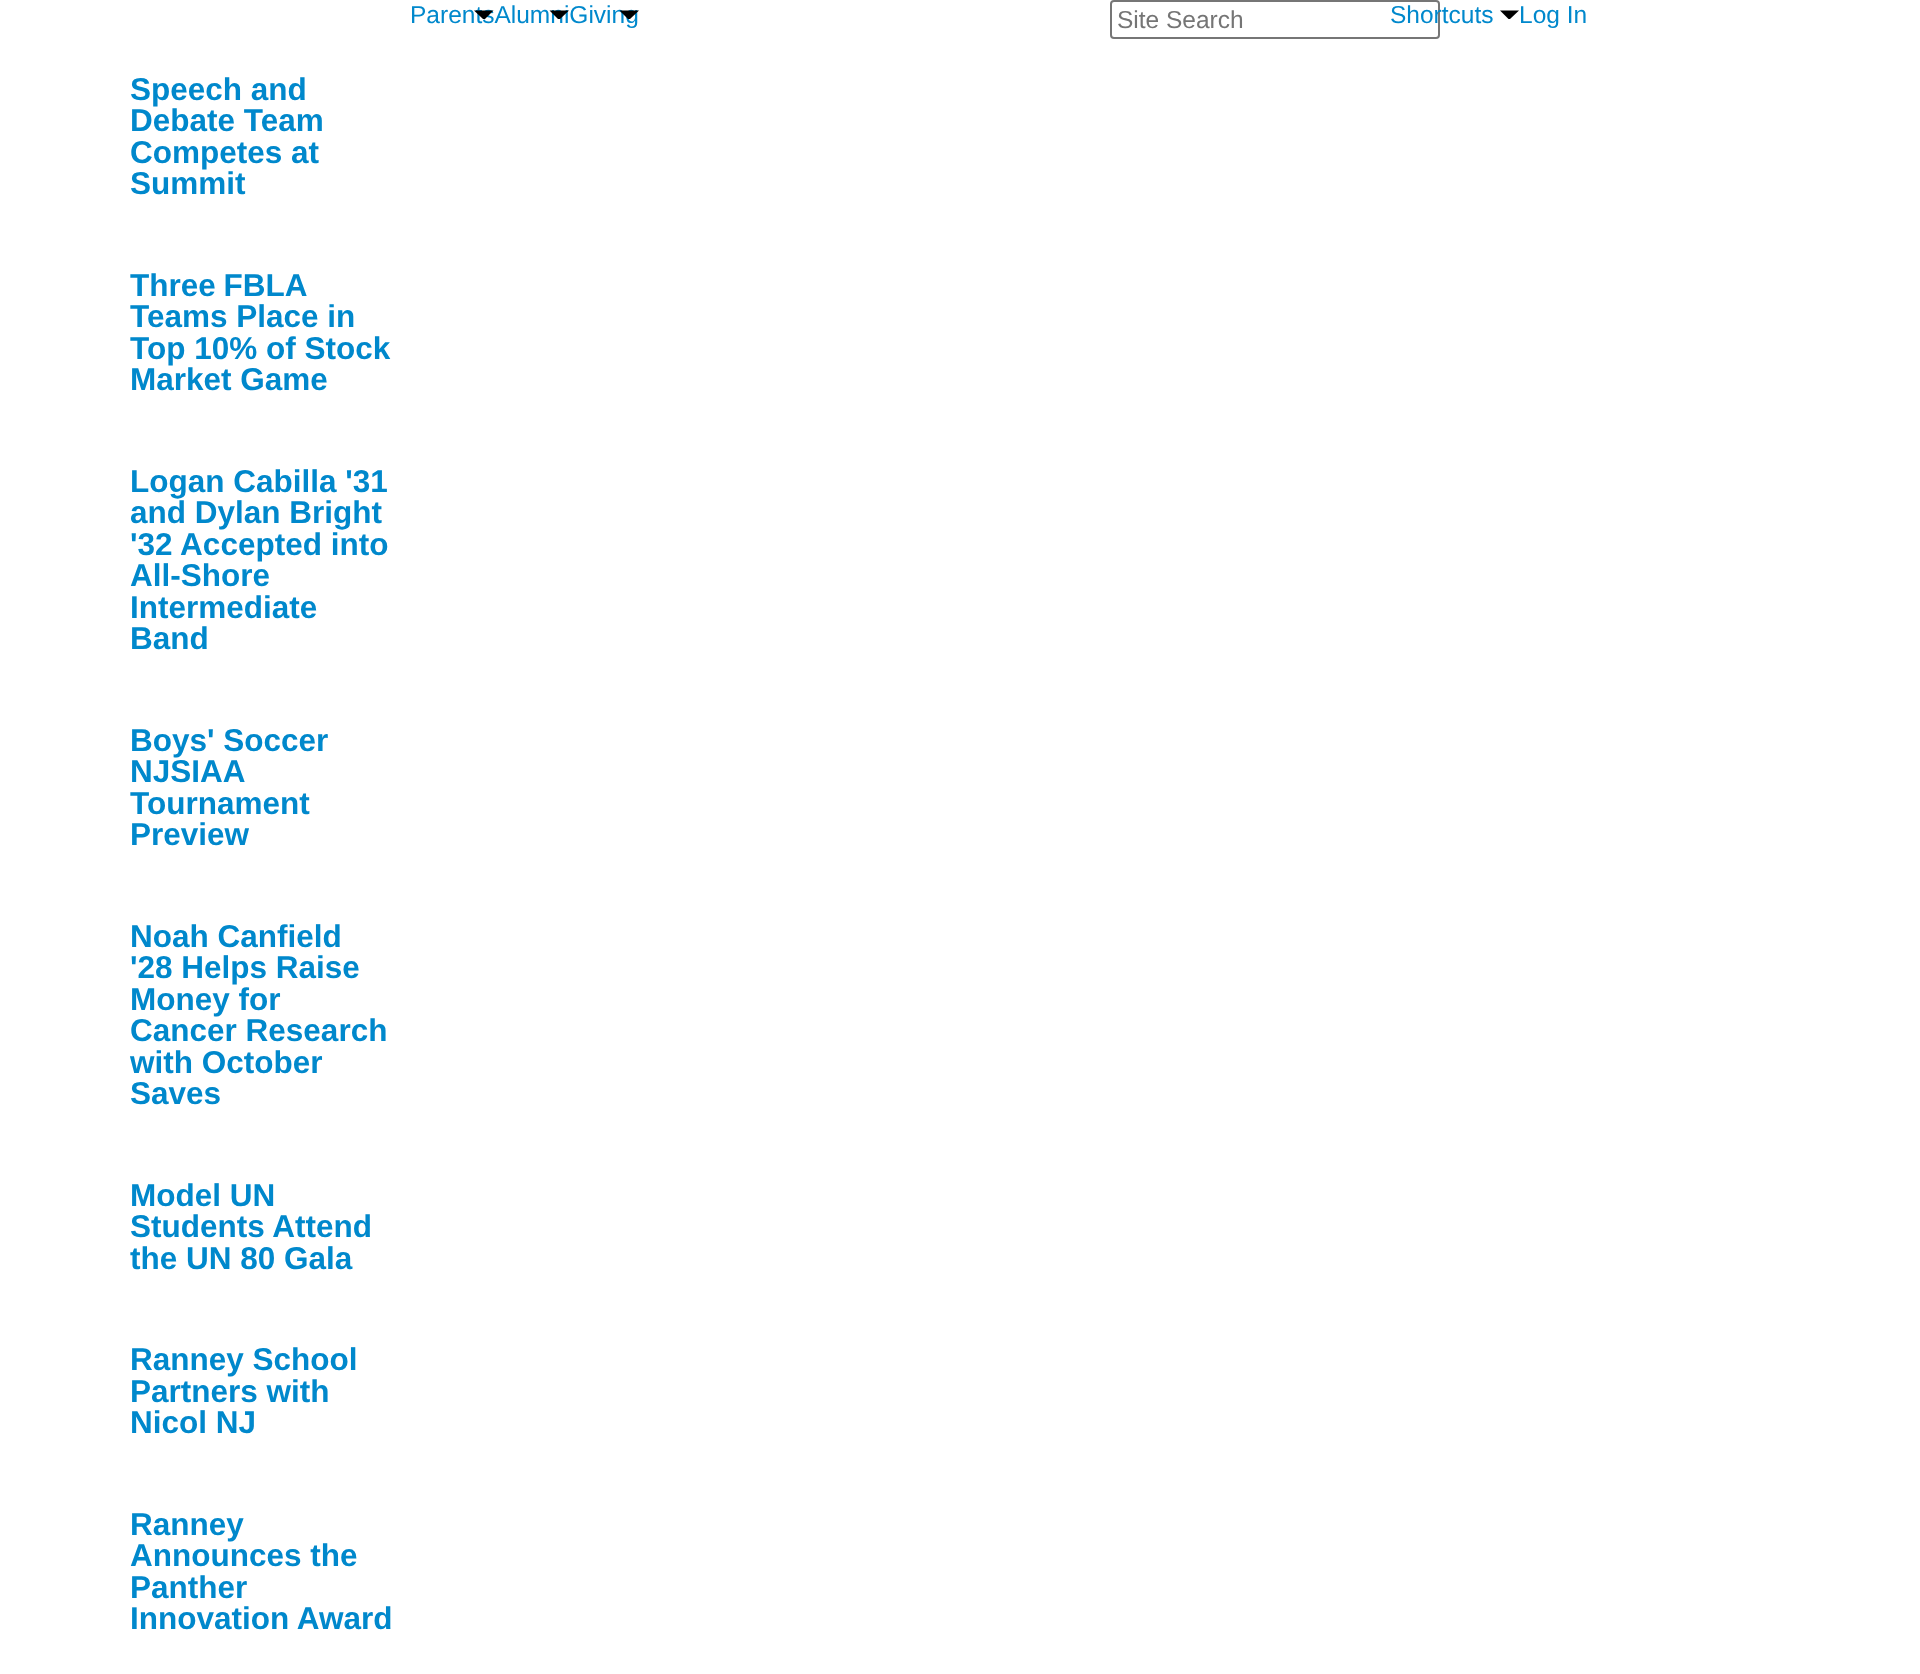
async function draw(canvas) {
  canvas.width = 1920
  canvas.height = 1674
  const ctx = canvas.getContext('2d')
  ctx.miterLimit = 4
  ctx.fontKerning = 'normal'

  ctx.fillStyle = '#fff'
  ctx.fillRect(0, 0, 1920, 1674)
  ctx.font = '24.5px Liberation Sans'
  ctx.fillStyle = '#08c'
  ctx.fillText('ParentsAlumniGiving', 410, 23)
  ctx.fillStyle = '#000'
  ctx.beginPath()
  ctx.moveTo(474, 10.5)
  ctx.lineTo(493.5, 10.5)
  ctx.lineTo(485, 19)
  ctx.lineTo(483, 19)
  ctx.closePath()
  ctx.fill()
  ctx.beginPath()
  ctx.moveTo(549.5, 10.5)
  ctx.lineTo(569, 10.5)
  ctx.lineTo(560, 19)
  ctx.lineTo(558, 19)
  ctx.closePath()
  ctx.fill()
  ctx.beginPath()
  ctx.moveTo(619.5, 10.5)
  ctx.lineTo(639, 10.5)
  ctx.lineTo(630, 19)
  ctx.lineTo(628, 19)
  ctx.closePath()
  ctx.fill()
  ctx.beginPath()
  ctx.roundRect(1111, 1, 328, 37, 3)
  ctx.strokeStyle = '#767676'
  ctx.lineWidth = 2
  ctx.stroke()
  ctx.fillStyle = '#757575'
  ctx.fillText('Site Search', 1117, 28)
  ctx.fillStyle = '#08c'
  ctx.fillText('Shortcuts', 1390, 23)
  ctx.fillStyle = '#000'
  ctx.beginPath()
  ctx.moveTo(1500, 10.5)
  ctx.lineTo(1519, 10.5)
  ctx.lineTo(1510, 19)
  ctx.lineTo(1508.5, 19)
  ctx.closePath()
  ctx.fill()
  ctx.fillStyle = '#08c'
  ctx.fillText('Log In', 1519, 23)
  ctx.font = 'bold 31.5px Liberation Sans'
  ctx.fillText('Speech and', 130, 100)
  ctx.fillText('Debate Team', 130, 131)
  ctx.fillText('Competes at', 130, 163)
  ctx.fillText('Summit', 130, 194)
  ctx.wordSpacing = '-1px'
  ctx.fillText('Three FBLA', 130, 296)
  ctx.wordSpacing = '0px'
  ctx.fillText('Teams Place in', 130, 327)
  ctx.fillText('Top 10% of Stock', 130, 359)
  ctx.fillText('Market Game', 130, 390)
  ctx.fillText('Logan Cabilla \'31', 130, 492)
  ctx.fillText('and Dylan Bright', 130, 523)
  ctx.fillText('\'32 Accepted into', 130, 555)
  ctx.fillText('All-Shore', 130, 586)
  ctx.fillText('Intermediate', 130, 618)
  ctx.fillText('Band', 130, 649)
  ctx.fillText('Boys\' Soccer', 130, 751)
  ctx.fillText('NJSIAA', 130, 782)
  ctx.fillText('Tournament', 130, 814)
  ctx.fillText('Preview', 130, 845)
  ctx.fillText('Noah Canfield', 130, 947)
  ctx.fillText('\'28 Helps Raise', 130, 978)
  ctx.fillText('Money for', 130, 1010)
  ctx.fillText('Cancer Research', 130, 1041)
  ctx.fillText('with October', 130, 1073)
  ctx.fillText('Saves', 130, 1104)
  ctx.fillText('Model UN', 130, 1206)
  ctx.fillText('Students Attend', 130, 1237)
  ctx.fillText('the UN 80 Gala', 130, 1269)
  ctx.fillText('Ranney School', 130, 1370)
  ctx.fillText('Partners with', 130, 1402)
  ctx.fillText('Nicol NJ', 130, 1433)
  ctx.fillText('Ranney', 130, 1535)
  ctx.fillText('Announces the', 130, 1566)
  ctx.fillText('Panther', 130, 1598)
  ctx.fillText('Innovation Award', 130, 1629)
}

draw(document.querySelector('canvas'))
